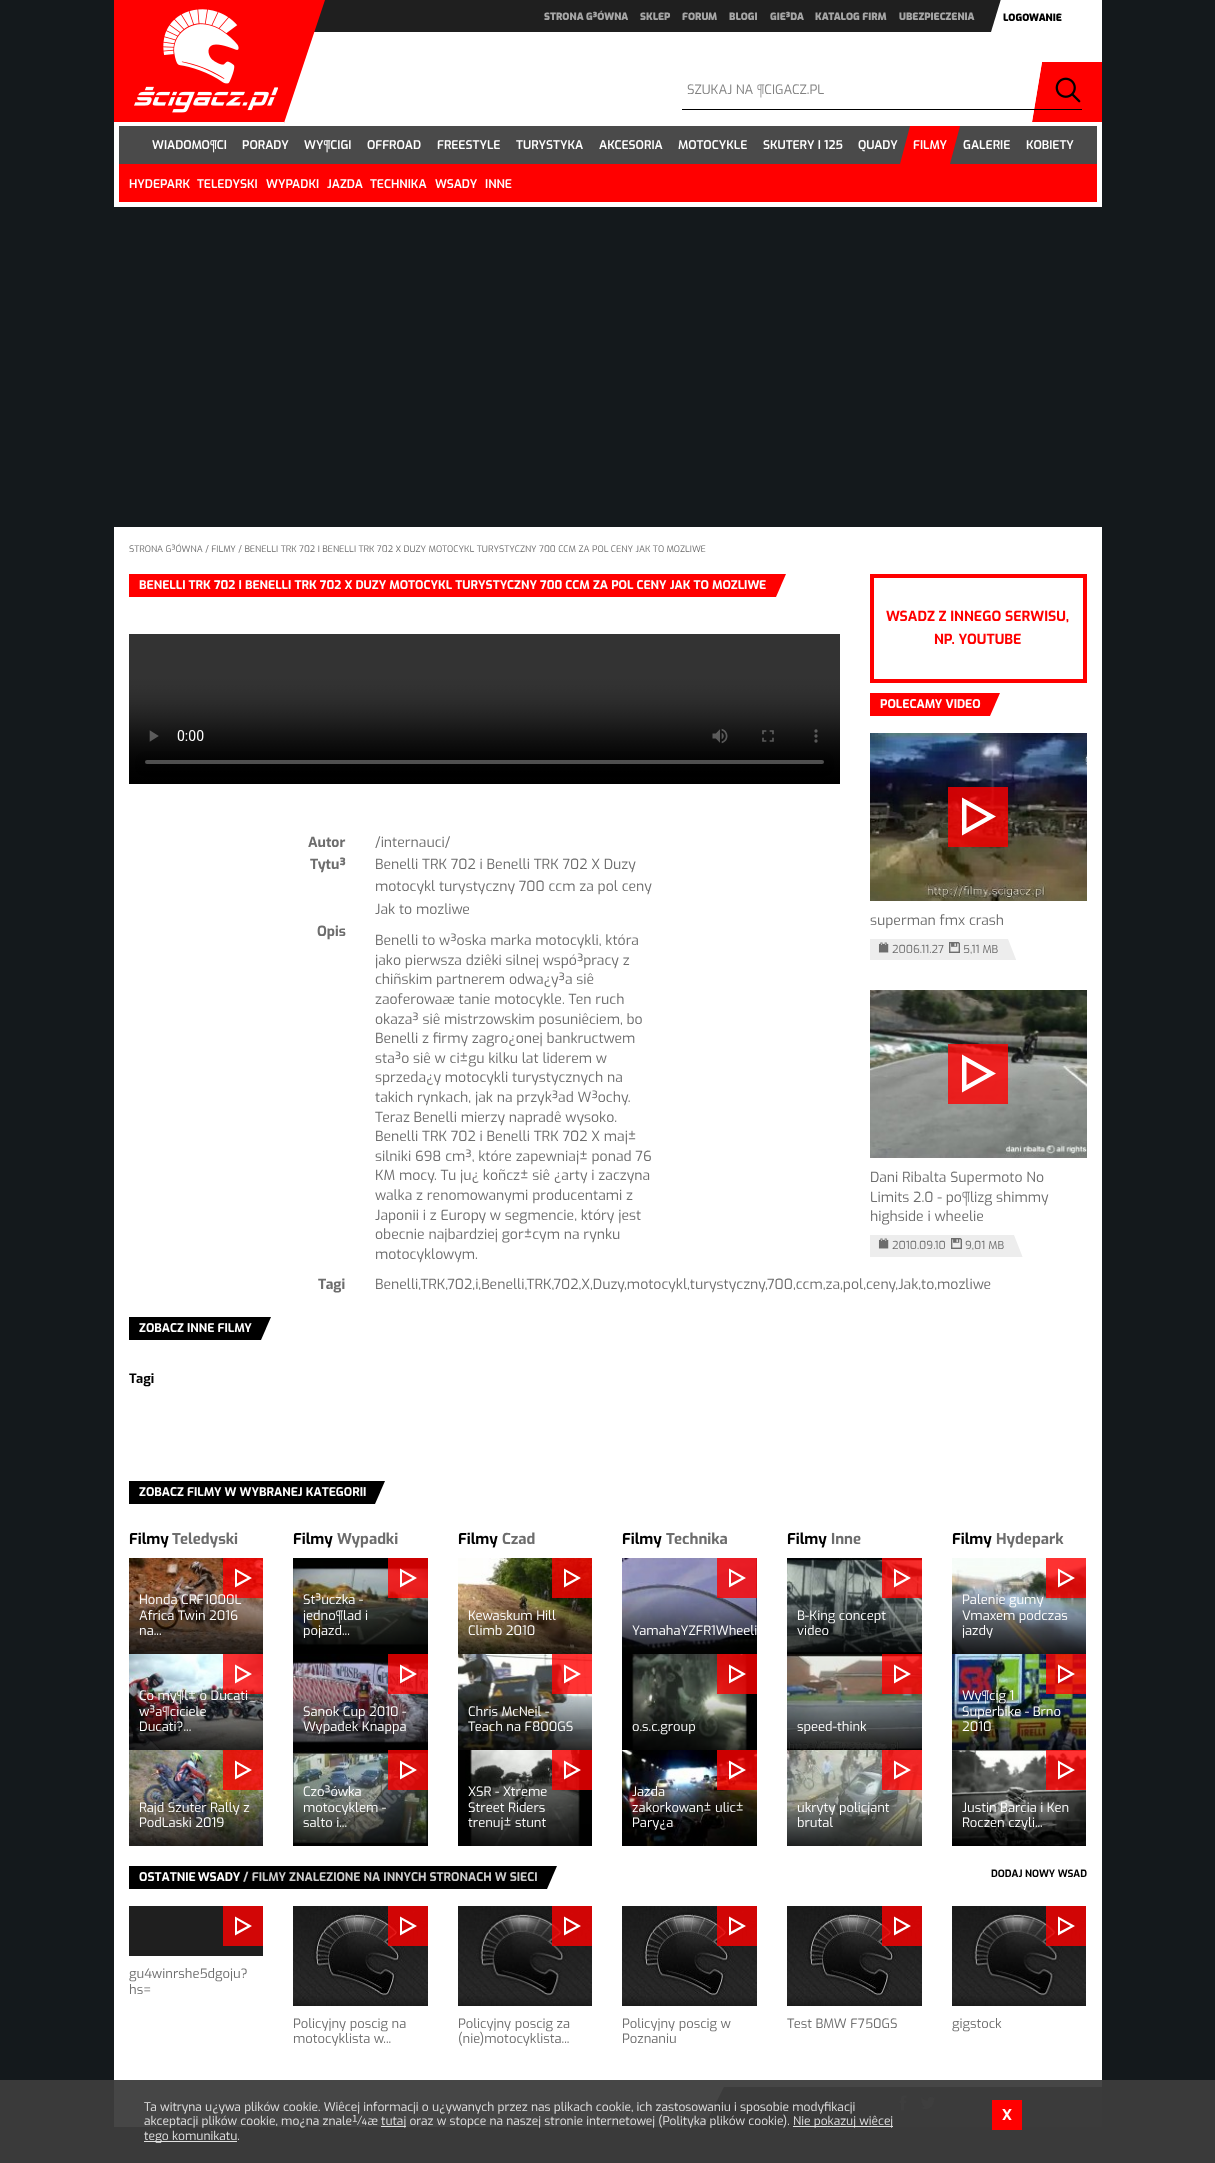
async function draw(canvas) {
  canvas.width = 1215
  canvas.height = 2163
  const ctx = canvas.getContext('2d')
  ctx.miterLimit = 4
  ctx.fontKerning = 'normal'
  async function loadImage(src) {
    const img = new Image()
    img.src = src
    await img.decode()
    return img
  }

  ctx.fillStyle = '#14191c'
  ctx.fillRect(0, 0, 1215, 2163)
  ctx.fillStyle = '#3a3a3a'
  ctx.fillRect(0, 2080, 1215, 83)
  ctx.fillStyle = '#fff'
  ctx.fillRect(114, 32, 988, 94)
  ctx.fillStyle = '#f00'
  ctx.fillRect(114, 0, 170, 122)
  ctx.drawImage(await loadImage('image0.png'), 134, 9, 144, 104)
  ctx.fillStyle = '#1f1f1f'
  ctx.fillRect(314, 0, 687, 32)
  ctx.fillStyle = '#f00'
  ctx.beginPath()
  ctx.moveTo(284, 0)
  ctx.lineTo(325, 0)
  ctx.lineTo(284, 123)
  ctx.closePath()
  ctx.fill()
  ctx.font = '900 10px Exo'
  ctx.fillStyle = '#a6a6a6'
  ctx.fillText('STRONA G³ÓWNA', 544, 20)
  ctx.fillText('SKLEP', 640, 20)
  ctx.fillText('FORUM', 682, 20)
  ctx.fillText('BLOGI', 729, 20)
  ctx.fillText('GIE³DA', 770, 20)
  ctx.fillText('KATALOG FIRM', 815, 20)
  ctx.fillText('UBEZPIECZENIA', 899, 20)
  ctx.fillStyle = '#fff'
  ctx.fillRect(1001, 0, 101, 32)
  ctx.beginPath()
  ctx.moveTo(1001, 32)
  ctx.lineTo(991, 32)
  ctx.lineTo(1001, -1)
  ctx.closePath()
  ctx.fill()
  ctx.fillStyle = '#000'
  ctx.fillText('LOGOWANIE', 1003, 21)
  ctx.fillStyle = '#f00'
  ctx.fillRect(1042, 62, 60, 60)
  ctx.beginPath()
  ctx.moveTo(1042, 122)
  ctx.lineTo(1032, 122)
  ctx.lineTo(1042, 62)
  ctx.closePath()
  ctx.fill()
  ctx.fillStyle = '#fff'
  ctx.beginPath()
  ctx.moveTo(1032, 122)
  ctx.lineTo(1032, 62)
  ctx.lineTo(1042, 62)
  ctx.closePath()
  ctx.fill()
  ctx.fillStyle = '#000'
  ctx.fillRect(682, 109, 400, 1)
  ctx.font = '13px Exo'
  ctx.fillStyle = '#818181'
  ctx.fillText('SZUKAJ NA ¶CIGACZ.PL', 687, 94)
  ctx.drawImage(await loadImage('image1.png'), 1055, 77, 26, 26)
  ctx.fillStyle = '#fff'
  ctx.fillRect(114, 126, 988, 81)
  ctx.fillStyle = '#4a4a4a'
  ctx.fillRect(119, 126, 978, 38)
  ctx.fillStyle = '#f00'
  ctx.fillRect(910, 126, 40, 38)
  ctx.font = '600 12px Exo'
  ctx.fillStyle = '#fff'
  ctx.fillText('FILMY', 913, 149)
  ctx.fillStyle = '#f00'
  ctx.beginPath()
  ctx.moveTo(950, 126)
  ctx.lineTo(960, 126)
  ctx.lineTo(950, 164)
  ctx.closePath()
  ctx.moveTo(910, 164)
  ctx.lineTo(900, 164)
  ctx.lineTo(910, 126)
  ctx.closePath()
  ctx.fill()
  ctx.fillRect(119, 164, 978, 38)
  ctx.fillStyle = '#fff'
  ctx.fillText('HYDEPARK', 129, 188)
  ctx.fillText('TELEDYSKI', 197, 188)
  ctx.fillText('WYPADKI', 266, 188)
  ctx.fillText('JAZDA', 327, 188)
  ctx.fillText('TECHNIKA', 370, 188)
  ctx.fillText('WSADY', 435, 188)
  ctx.fillText('INNE', 485, 188)
  ctx.fillText('WIADOMO¶CI', 152, 149)
  ctx.fillText('PORADY', 242, 149)
  ctx.fillText('WY¶CIGI', 304, 149)
  ctx.fillText('OFFROAD', 367, 149)
  ctx.fillText('FREESTYLE', 437, 149)
  ctx.fillText('TURYSTYKA', 516, 149)
  ctx.fillText('AKCESORIA', 599, 149)
  ctx.fillText('MOTOCYKLE', 678, 149)
  ctx.fillText('SKUTERY I 125', 763, 149)
  ctx.fillText('QUADY', 858, 149)
  ctx.fillText('GALERIE', 963, 149)
  ctx.fillText('KOBIETY', 1026, 149)
  ctx.fillRect(114, 527, 988, 1553)
  ctx.font = '9px Exo'
  ctx.fillStyle = '#6d6d6d'
  ctx.fillText('STRONA G³ÓWNA / FILMY / BENELLI TRK 702 I BENELLI TRK 702 X DUZY MOTOCYKL TURYSTYCZNY 700 CCM ZA POL CENY JAK TO MOZLIWE', 129, 552)
  ctx.fillStyle = '#464646'
  ctx.fillRect(114, 2080, 988, 47)
  ctx.fillStyle = '#f00'
  ctx.fillRect(129, 574, 647, 23)
  ctx.font = 'bold 12px Exo'
  ctx.fillStyle = '#fff'
  ctx.fillText('BENELLI TRK 702 I BENELLI TRK 702 X DUZY MOTOCYKL TURYSTYCZNY 700 CCM ZA POL CENY JAK TO MOZLIWE', 139, 589)
  ctx.fillStyle = '#f00'
  ctx.beginPath()
  ctx.moveTo(776, 574)
  ctx.lineTo(786, 574)
  ctx.lineTo(776, 597)
  ctx.closePath()
  ctx.fill()
  ctx.drawImage(await loadImage('image2.png'), 129, 634, 711, 150)
  ctx.font = 'bold 14px Exo'
  ctx.fillStyle = '#6d6d6d'
  ctx.fillText('Autor', 308, 847)
  ctx.font = '14px Exo'
  ctx.fillText('/internauci/', 375, 847)
  ctx.font = 'bold 14px Exo'
  ctx.fillText('Tytu³', 310, 869)
  ctx.font = '14px Exo'
  ctx.fillText('Benelli TRK 702 i Benelli TRK 702 X Duzy', 375, 869)
  ctx.fillText('motocykl turystyczny 700 ccm za pol ceny', 375, 891)
  ctx.fillText('Jak to mozliwe', 375, 914)
  ctx.font = 'bold 14px Exo'
  ctx.fillText('Opis', 317, 936)
  ctx.font = '14px Exo'
  ctx.fillText('Benelli to w³oska marka motocykli, która', 375, 945)
  ctx.fillText('jako pierwsza dziêki silnej wspó³pracy z', 375, 965)
  ctx.fillText('chiñskim partnerem odwa¿y³a siê', 375, 984)
  ctx.fillText('zaoferowaæ tanie motocykle. Ten ruch', 375, 1004)
  ctx.fillText('okaza³ siê mistrzowskim posuniêciem, bo', 375, 1024)
  ctx.fillText('Benelli z firmy zagro¿onej bankructwem', 375, 1043)
  ctx.fillText('sta³o siê w ci±gu kilku lat liderem w', 375, 1063)
  ctx.fillText('sprzeda¿y motocykli turystycznych na', 375, 1082)
  ctx.fillText('takich rynkach, jak na przyk³ad W³ochy.', 375, 1102)
  ctx.fillText('Teraz Benelli mierzy napradê wysoko.', 375, 1122)
  ctx.fillText('Benelli TRK 702 i Benelli TRK 702 X maj±', 375, 1141)
  ctx.fillText('silniki 698 cm³, które zapewniaj± ponad 76', 375, 1161)
  ctx.fillText('KM mocy. Tu ju¿ koñcz± siê ¿arty i zaczyna', 375, 1180)
  ctx.fillText('walka z renomowanymi producentami z', 375, 1200)
  ctx.fillText('Japonii i z Europy w segmencie, który jest', 375, 1220)
  ctx.fillText('obecnie najbardziej gor±cym na rynku', 375, 1239)
  ctx.fillText('motocyklowym.', 375, 1259)
  ctx.font = 'bold 14px Exo'
  ctx.fillText('Tagi', 318, 1289)
  ctx.font = '14px Exo'
  ctx.fillText('Benelli,TRK,702,i,Benelli,TRK,702,X,Duzy,motocykl,turystyczny,700,ccm,za,pol,ceny,Jak,to,mozliwe', 375, 1289)
  ctx.fillStyle = '#000'
  ctx.fillRect(129, 1317, 132, 23)
  ctx.font = 'bold 12px Exo'
  ctx.fillStyle = '#fff'
  ctx.fillText('ZOBACZ INNE FILMY', 139, 1332)
  ctx.fillStyle = '#000'
  ctx.beginPath()
  ctx.moveTo(261, 1317)
  ctx.lineTo(271, 1317)
  ctx.lineTo(261, 1340)
  ctx.closePath()
  ctx.fill()
  ctx.font = 'bold 13px Exo'
  ctx.fillText('Tagi', 129, 1383)
  ctx.strokeStyle = '#f00'
  ctx.lineWidth = 4
  ctx.strokeRect(872, 576, 213, 105)
  ctx.font = 'bold 14px Exo'
  ctx.fillStyle = '#f00'
  ctx.fillText('WSADZ Z INNEGO SERWISU,', 886, 621)
  ctx.fillText('NP. YOUTUBE', 934, 644)
  ctx.fillRect(870, 693, 120, 23)
  ctx.font = 'bold 12px Exo'
  ctx.fillStyle = '#fff'
  ctx.fillText('POLECAMY VIDEO', 880, 708)
  ctx.fillStyle = '#f00'
  ctx.beginPath()
  ctx.moveTo(990, 693)
  ctx.lineTo(1000, 693)
  ctx.lineTo(990, 716)
  ctx.closePath()
  ctx.fill()
  ctx.drawImage(await loadImage('image3.png'), 870, 733, 217, 168)
  ctx.fillStyle = '#ff0000cc'
  ctx.fillRect(948, 787, 60, 60)
  ctx.fillStyle = '#fff'
  ctx.beginPath()
  ctx.moveTo(962, 797.5)
  ctx.lineTo(962, 835.5)
  ctx.lineTo(996, 816.5)
  ctx.closePath()
  ctx.moveTo(966.5, 805)
  ctx.lineTo(987, 816.5)
  ctx.lineTo(966.5, 828)
  ctx.closePath()
  ctx.fill()
  ctx.font = '14px Exo'
  ctx.fillStyle = '#6d6d6d'
  ctx.fillText('superman fmx crash', 870, 925)
  ctx.fillStyle = '#ededed'
  ctx.fillRect(870, 939, 138, 21)
  ctx.drawImage(await loadImage('image4.png'), 878, 942, 11, 11)
  ctx.font = '11px Exo'
  ctx.fillStyle = '#6d6d6d'
  ctx.fillText('2006.11.27', 892, 953)
  ctx.drawImage(await loadImage('image5.png'), 949, 942, 11, 11)
  ctx.fillText('5,11 MB', 963, 953)
  ctx.save()
  ctx.beginPath()
  ctx.rect(870, 733, 217, 227)
  ctx.clip()
  ctx.fillStyle = '#ededed'
  ctx.beginPath()
  ctx.moveTo(1017, 962)
  ctx.lineTo(1008, 962)
  ctx.lineTo(1008, 939)
  ctx.closePath()
  ctx.fill()
  ctx.restore()
  ctx.drawImage(await loadImage('image6.png'), 870, 990, 217, 168)
  ctx.fillStyle = '#ff0000cc'
  ctx.fillRect(948, 1044, 60, 60)
  ctx.fillStyle = '#fff'
  ctx.beginPath()
  ctx.moveTo(962, 1054.5)
  ctx.lineTo(962, 1092.5)
  ctx.lineTo(996, 1073.5)
  ctx.closePath()
  ctx.moveTo(966.5, 1062)
  ctx.lineTo(987, 1073.5)
  ctx.lineTo(966.5, 1085)
  ctx.closePath()
  ctx.fill()
  ctx.font = '14px Exo'
  ctx.fillStyle = '#6d6d6d'
  ctx.fillText('Dani Ribalta Supermoto No', 870, 1182)
  ctx.fillText('Limits 2.0 - po¶lizg shimmy', 870, 1202)
  ctx.fillText('highside i wheelie', 870, 1221)
  ctx.fillStyle = '#ededed'
  ctx.fillRect(870, 1235, 144, 22)
  ctx.drawImage(await loadImage('image4.png'), 878, 1238, 11, 11)
  ctx.font = '11px Exo'
  ctx.fillStyle = '#6d6d6d'
  ctx.fillText('2010.09.10', 892, 1249)
  ctx.drawImage(await loadImage('image5.png'), 951, 1238, 11, 11)
  ctx.fillText('9,01 MB', 965, 1249)
  ctx.save()
  ctx.beginPath()
  ctx.rect(870, 990, 217, 267)
  ctx.clip()
  ctx.fillStyle = '#ededed'
  ctx.beginPath()
  ctx.moveTo(1023, 1258)
  ctx.lineTo(1014, 1258)
  ctx.lineTo(1014, 1235)
  ctx.closePath()
  ctx.fill()
  ctx.restore()
  ctx.fillStyle = '#000'
  ctx.fillRect(129, 1481, 246, 23)
  ctx.font = 'bold 12px Exo'
  ctx.fillStyle = '#fff'
  ctx.fillText('ZOBACZ FILMY W WYBRANEJ KATEGORII', 139, 1496)
  ctx.fillStyle = '#000'
  ctx.beginPath()
  ctx.moveTo(375, 1481)
  ctx.lineTo(385, 1481)
  ctx.lineTo(375, 1504)
  ctx.closePath()
  ctx.fill()
  ctx.font = 'bold 15px Exo'
  ctx.fillText('Filmy', 129, 1544)
  ctx.fillStyle = '#6d6d6d'
  ctx.fillText('Teledyski', 172, 1544)
  ctx.drawImage(await loadImage('image7.png'), 129, 1558, 134, 96)
  ctx.fillStyle = '#ff0000cc'
  ctx.fillRect(223, 1558, 40, 40)
  ctx.fillStyle = '#fff'
  ctx.beginPath()
  ctx.moveTo(235, 1568.5)
  ctx.lineTo(235, 1587.5)
  ctx.lineTo(252, 1578)
  ctx.closePath()
  ctx.moveTo(237, 1572)
  ctx.lineTo(247.5, 1578)
  ctx.lineTo(237, 1583.5)
  ctx.closePath()
  ctx.fill()
  ctx.font = '13px Exo'
  ctx.fillText('Honda CRF1000L', 139, 1604)
  ctx.fillText('Africa Twin 2016', 139, 1620)
  ctx.fillText('na...', 139, 1635)
  ctx.drawImage(await loadImage('image8.png'), 129, 1654, 134, 96)
  ctx.fillStyle = '#ff0000cc'
  ctx.fillRect(223, 1654, 40, 40)
  ctx.fillStyle = '#fff'
  ctx.beginPath()
  ctx.moveTo(235, 1664.5)
  ctx.lineTo(235, 1683.5)
  ctx.lineTo(252, 1674)
  ctx.closePath()
  ctx.moveTo(237, 1668)
  ctx.lineTo(247.5, 1674)
  ctx.lineTo(237, 1679.5)
  ctx.closePath()
  ctx.fill()
  ctx.fillText('Co my¶l± o Ducati', 139, 1700)
  ctx.fillText('w³a¶ciciele', 139, 1716)
  ctx.fillText('Ducati?...', 139, 1731)
  ctx.drawImage(await loadImage('image9.png'), 129, 1750, 134, 96)
  ctx.fillStyle = '#ff0000cc'
  ctx.fillRect(223, 1750, 40, 40)
  ctx.fillStyle = '#fff'
  ctx.beginPath()
  ctx.moveTo(235, 1760.5)
  ctx.lineTo(235, 1779.5)
  ctx.lineTo(252, 1770)
  ctx.closePath()
  ctx.moveTo(237, 1764)
  ctx.lineTo(247.5, 1770)
  ctx.lineTo(237, 1775.5)
  ctx.closePath()
  ctx.fill()
  ctx.fillText('Rajd Szuter Rally z', 139, 1812)
  ctx.fillText('PodLaski 2019', 139, 1827)
  ctx.font = 'bold 15px Exo'
  ctx.fillStyle = '#000'
  ctx.fillText('Filmy', 293, 1544)
  ctx.fillStyle = '#6d6d6d'
  ctx.fillText('Wypadki', 337, 1544)
  ctx.drawImage(await loadImage('image10.png'), 293, 1558, 135, 96)
  ctx.fillStyle = '#ff0000cc'
  ctx.fillRect(388, 1558, 40, 40)
  ctx.fillStyle = '#fff'
  ctx.beginPath()
  ctx.moveTo(400, 1568.5)
  ctx.lineTo(400, 1587.5)
  ctx.lineTo(417, 1578)
  ctx.closePath()
  ctx.moveTo(402, 1572)
  ctx.lineTo(412.5, 1578)
  ctx.lineTo(402, 1583.5)
  ctx.closePath()
  ctx.fill()
  ctx.font = '13px Exo'
  ctx.fillText('St³uczka -', 303, 1604)
  ctx.fillText('jedno¶lad i', 303, 1620)
  ctx.fillText('pojazd...', 303, 1635)
  ctx.drawImage(await loadImage('image11.png'), 293, 1654, 135, 96)
  ctx.fillStyle = '#ff0000cc'
  ctx.fillRect(388, 1654, 40, 40)
  ctx.fillStyle = '#fff'
  ctx.beginPath()
  ctx.moveTo(400, 1664.5)
  ctx.lineTo(400, 1683.5)
  ctx.lineTo(417, 1674)
  ctx.closePath()
  ctx.moveTo(402, 1668)
  ctx.lineTo(412.5, 1674)
  ctx.lineTo(402, 1679.5)
  ctx.closePath()
  ctx.fill()
  ctx.fillText('Sanok Cup 2010 -', 303, 1716)
  ctx.fillText('Wypadek Knappa', 303, 1731)
  ctx.drawImage(await loadImage('image12.png'), 293, 1750, 135, 96)
  ctx.fillStyle = '#ff0000cc'
  ctx.fillRect(388, 1750, 40, 40)
  ctx.fillStyle = '#fff'
  ctx.beginPath()
  ctx.moveTo(400, 1760.5)
  ctx.lineTo(400, 1779.5)
  ctx.lineTo(417, 1770)
  ctx.closePath()
  ctx.moveTo(402, 1764)
  ctx.lineTo(412.5, 1770)
  ctx.lineTo(402, 1775.5)
  ctx.closePath()
  ctx.fill()
  ctx.fillText('Czo³ówka', 303, 1796)
  ctx.fillText('motocyklem -', 303, 1812)
  ctx.fillText('salto i...', 303, 1827)
  ctx.font = 'bold 15px Exo'
  ctx.fillStyle = '#000'
  ctx.fillText('Filmy', 458, 1544)
  ctx.fillStyle = '#6d6d6d'
  ctx.fillText('Czad', 502, 1544)
  ctx.drawImage(await loadImage('image13.png'), 458, 1558, 134, 96)
  ctx.fillStyle = '#ff0000cc'
  ctx.fillRect(552, 1558, 40, 40)
  ctx.fillStyle = '#fff'
  ctx.beginPath()
  ctx.moveTo(564, 1568.5)
  ctx.lineTo(564, 1587.5)
  ctx.lineTo(581, 1578)
  ctx.closePath()
  ctx.moveTo(566, 1572)
  ctx.lineTo(576.5, 1578)
  ctx.lineTo(566, 1583.5)
  ctx.closePath()
  ctx.fill()
  ctx.font = '13px Exo'
  ctx.fillText('Kewaskum Hill', 468, 1620)
  ctx.fillText('Climb 2010', 468, 1635)
  ctx.drawImage(await loadImage('image14.png'), 458, 1654, 134, 96)
  ctx.fillStyle = '#ff0000cc'
  ctx.fillRect(552, 1654, 40, 40)
  ctx.fillStyle = '#fff'
  ctx.beginPath()
  ctx.moveTo(564, 1664.5)
  ctx.lineTo(564, 1683.5)
  ctx.lineTo(581, 1674)
  ctx.closePath()
  ctx.moveTo(566, 1668)
  ctx.lineTo(576.5, 1674)
  ctx.lineTo(566, 1679.5)
  ctx.closePath()
  ctx.fill()
  ctx.fillText('Chris McNeil -', 468, 1716)
  ctx.fillText('Teach na F800GS', 468, 1731)
  ctx.drawImage(await loadImage('image15.png'), 458, 1750, 134, 96)
  ctx.fillStyle = '#ff0000cc'
  ctx.fillRect(552, 1750, 40, 40)
  ctx.fillStyle = '#fff'
  ctx.beginPath()
  ctx.moveTo(564, 1760.5)
  ctx.lineTo(564, 1779.5)
  ctx.lineTo(581, 1770)
  ctx.closePath()
  ctx.moveTo(566, 1764)
  ctx.lineTo(576.5, 1770)
  ctx.lineTo(566, 1775.5)
  ctx.closePath()
  ctx.fill()
  ctx.fillText('XSR - Xtreme', 468, 1796)
  ctx.fillText('Street Riders', 468, 1812)
  ctx.fillText('trenuj± stunt', 468, 1827)
  ctx.font = 'bold 15px Exo'
  ctx.fillStyle = '#000'
  ctx.fillText('Filmy', 622, 1544)
  ctx.fillStyle = '#6d6d6d'
  ctx.fillText('Technika', 666, 1544)
  ctx.drawImage(await loadImage('image16.png'), 622, 1558, 135, 96)
  ctx.fillStyle = '#ff0000cc'
  ctx.fillRect(717, 1558, 40, 40)
  ctx.fillStyle = '#fff'
  ctx.beginPath()
  ctx.moveTo(729, 1568.5)
  ctx.lineTo(729, 1587.5)
  ctx.lineTo(746, 1578)
  ctx.closePath()
  ctx.moveTo(731, 1572)
  ctx.lineTo(741.5, 1578)
  ctx.lineTo(731, 1583.5)
  ctx.closePath()
  ctx.fill()
  ctx.font = '13px Exo'
  ctx.fillText('YamahaYZFR1Wheeli', 632, 1635)
  ctx.drawImage(await loadImage('image17.png'), 622, 1654, 135, 96)
  ctx.fillStyle = '#ff0000cc'
  ctx.fillRect(717, 1654, 40, 40)
  ctx.fillStyle = '#fff'
  ctx.beginPath()
  ctx.moveTo(729, 1664.5)
  ctx.lineTo(729, 1683.5)
  ctx.lineTo(746, 1674)
  ctx.closePath()
  ctx.moveTo(731, 1668)
  ctx.lineTo(741.5, 1674)
  ctx.lineTo(731, 1679.5)
  ctx.closePath()
  ctx.fill()
  ctx.fillText('o.s.c.group', 632, 1731)
  ctx.drawImage(await loadImage('image18.png'), 622, 1750, 135, 96)
  ctx.fillStyle = '#ff0000cc'
  ctx.fillRect(717, 1750, 40, 40)
  ctx.fillStyle = '#fff'
  ctx.beginPath()
  ctx.moveTo(729, 1760.5)
  ctx.lineTo(729, 1779.5)
  ctx.lineTo(746, 1770)
  ctx.closePath()
  ctx.moveTo(731, 1764)
  ctx.lineTo(741.5, 1770)
  ctx.lineTo(731, 1775.5)
  ctx.closePath()
  ctx.fill()
  ctx.fillText('Jazda', 632, 1796)
  ctx.fillText('zakorkowan± ulic±', 632, 1812)
  ctx.fillText('Pary¿a', 632, 1827)
  ctx.font = 'bold 15px Exo'
  ctx.fillStyle = '#000'
  ctx.fillText('Filmy', 787, 1544)
  ctx.fillStyle = '#6d6d6d'
  ctx.fillText('Inne', 831, 1544)
  ctx.drawImage(await loadImage('image19.png'), 787, 1558, 135, 96)
  ctx.fillStyle = '#ff0000cc'
  ctx.fillRect(882, 1558, 40, 40)
  ctx.fillStyle = '#fff'
  ctx.beginPath()
  ctx.moveTo(894, 1568.5)
  ctx.lineTo(894, 1587.5)
  ctx.lineTo(911, 1578)
  ctx.closePath()
  ctx.moveTo(896, 1572)
  ctx.lineTo(906.5, 1578)
  ctx.lineTo(896, 1583.5)
  ctx.closePath()
  ctx.fill()
  ctx.font = '13px Exo'
  ctx.fillText('B-King concept', 797, 1620)
  ctx.fillText('video', 797, 1635)
  ctx.drawImage(await loadImage('image20.png'), 787, 1654, 135, 96)
  ctx.fillStyle = '#ff0000cc'
  ctx.fillRect(882, 1654, 40, 40)
  ctx.fillStyle = '#fff'
  ctx.beginPath()
  ctx.moveTo(894, 1664.5)
  ctx.lineTo(894, 1683.5)
  ctx.lineTo(911, 1674)
  ctx.closePath()
  ctx.moveTo(896, 1668)
  ctx.lineTo(906.5, 1674)
  ctx.lineTo(896, 1679.5)
  ctx.closePath()
  ctx.fill()
  ctx.fillText('speed-think', 797, 1731)
  ctx.drawImage(await loadImage('image21.png'), 787, 1750, 135, 96)
  ctx.fillStyle = '#ff0000cc'
  ctx.fillRect(882, 1750, 40, 40)
  ctx.fillStyle = '#fff'
  ctx.beginPath()
  ctx.moveTo(894, 1760.5)
  ctx.lineTo(894, 1779.5)
  ctx.lineTo(911, 1770)
  ctx.closePath()
  ctx.moveTo(896, 1764)
  ctx.lineTo(906.5, 1770)
  ctx.lineTo(896, 1775.5)
  ctx.closePath()
  ctx.fill()
  ctx.fillText('ukryty policjant', 797, 1812)
  ctx.fillText('brutal', 797, 1827)
  ctx.font = 'bold 15px Exo'
  ctx.fillStyle = '#000'
  ctx.fillText('Filmy', 952, 1544)
  ctx.fillStyle = '#6d6d6d'
  ctx.fillText('Hydepark', 996, 1544)
  ctx.drawImage(await loadImage('image22.png'), 952, 1558, 134, 96)
  ctx.fillStyle = '#ff0000cc'
  ctx.fillRect(1046, 1558, 40, 40)
  ctx.fillStyle = '#fff'
  ctx.beginPath()
  ctx.moveTo(1058, 1568.5)
  ctx.lineTo(1058, 1587.5)
  ctx.lineTo(1075, 1578)
  ctx.closePath()
  ctx.moveTo(1060, 1572)
  ctx.lineTo(1070.5, 1578)
  ctx.lineTo(1060, 1583.5)
  ctx.closePath()
  ctx.fill()
  ctx.font = '13px Exo'
  ctx.fillText('Palenie gumy', 962, 1604)
  ctx.fillText('Vmaxem podczas', 962, 1620)
  ctx.fillText('jazdy', 962, 1635)
  ctx.drawImage(await loadImage('image23.png'), 952, 1654, 134, 96)
  ctx.fillStyle = '#ff0000cc'
  ctx.fillRect(1046, 1654, 40, 40)
  ctx.fillStyle = '#fff'
  ctx.beginPath()
  ctx.moveTo(1058, 1664.5)
  ctx.lineTo(1058, 1683.5)
  ctx.lineTo(1075, 1674)
  ctx.closePath()
  ctx.moveTo(1060, 1668)
  ctx.lineTo(1070.5, 1674)
  ctx.lineTo(1060, 1679.5)
  ctx.closePath()
  ctx.fill()
  ctx.fillText('Wy¶cig 1', 962, 1700)
  ctx.fillText('Superbike - Brno', 962, 1716)
  ctx.fillText('2010', 962, 1731)
  ctx.drawImage(await loadImage('image24.png'), 952, 1750, 134, 96)
  ctx.fillStyle = '#ff0000cc'
  ctx.fillRect(1046, 1750, 40, 40)
  ctx.fillStyle = '#fff'
  ctx.beginPath()
  ctx.moveTo(1058, 1760.5)
  ctx.lineTo(1058, 1779.5)
  ctx.lineTo(1075, 1770)
  ctx.closePath()
  ctx.moveTo(1060, 1764)
  ctx.lineTo(1070.5, 1770)
  ctx.lineTo(1060, 1775.5)
  ctx.closePath()
  ctx.fill()
  ctx.fillText('Justin Barcia i Ken', 962, 1812)
  ctx.fillText('Roczen czyli...', 962, 1827)
  ctx.fillStyle = '#000'
  ctx.fillRect(129, 1866, 418, 23)
  ctx.wordSpacing = '-1px'
  ctx.font = 'bold 12px Exo'
  ctx.fillStyle = '#fff'
  ctx.fillText('OSTATNIE WSADY', 139, 1881)
  ctx.wordSpacing = '0px'
  ctx.fillStyle = '#ccc'
  ctx.fillText('/ FILMY ZNALEZIONE NA INNYCH STRONACH W SIECI', 243, 1881)
  ctx.fillStyle = '#000'
  ctx.beginPath()
  ctx.moveTo(547, 1866)
  ctx.lineTo(557, 1866)
  ctx.lineTo(547, 1889)
  ctx.closePath()
  ctx.fill()
  ctx.font = 'bold 10px Exo'
  ctx.fillText('DODAJ NOWY WSAD', 991, 1877)
  ctx.fillStyle = '#1f1f1f'
  ctx.fillRect(129, 1906, 134, 50)
  ctx.fillStyle = '#d20606'
  ctx.fillRect(223, 1906, 40, 40)
  ctx.fillStyle = '#fff'
  ctx.beginPath()
  ctx.moveTo(235, 1916.5)
  ctx.lineTo(235, 1935.5)
  ctx.lineTo(252, 1926)
  ctx.closePath()
  ctx.moveTo(237, 1920)
  ctx.lineTo(247.5, 1926)
  ctx.lineTo(237, 1931.5)
  ctx.closePath()
  ctx.fill()
  ctx.font = '13px Exo'
  ctx.fillStyle = '#6d6d6d'
  ctx.fillText('gu4winrshe5dgoju?', 129, 1978)
  ctx.fillText('hs=', 129, 1994)
  ctx.drawImage(await loadImage('image25.png'), 293, 1906, 135, 100)
  ctx.fillStyle = '#ff0000cc'
  ctx.fillRect(388, 1906, 40, 40)
  ctx.fillStyle = '#fff'
  ctx.beginPath()
  ctx.moveTo(400, 1916.5)
  ctx.lineTo(400, 1935.5)
  ctx.lineTo(417, 1926)
  ctx.closePath()
  ctx.moveTo(402, 1920)
  ctx.lineTo(412.5, 1926)
  ctx.lineTo(402, 1931.5)
  ctx.closePath()
  ctx.fill()
  ctx.fillStyle = '#6d6d6d'
  ctx.fillText('Policyjny poscig na', 293, 2028)
  ctx.fillText('motocyklista w...', 293, 2043)
  ctx.drawImage(await loadImage('image26.png'), 458, 1906, 134, 100)
  ctx.fillStyle = '#ff0000cc'
  ctx.fillRect(552, 1906, 40, 40)
  ctx.fillStyle = '#fff'
  ctx.beginPath()
  ctx.moveTo(564, 1916.5)
  ctx.lineTo(564, 1935.5)
  ctx.lineTo(581, 1926)
  ctx.closePath()
  ctx.moveTo(566, 1920)
  ctx.lineTo(576.5, 1926)
  ctx.lineTo(566, 1931.5)
  ctx.closePath()
  ctx.fill()
  ctx.fillStyle = '#6d6d6d'
  ctx.fillText('Policyjny poscig za', 458, 2028)
  ctx.fillText('(nie)motocyklista...', 458, 2043)
  ctx.drawImage(await loadImage('image25.png'), 622, 1906, 135, 100)
  ctx.fillStyle = '#ff0000cc'
  ctx.fillRect(717, 1906, 40, 40)
  ctx.fillStyle = '#fff'
  ctx.beginPath()
  ctx.moveTo(729, 1916.5)
  ctx.lineTo(729, 1935.5)
  ctx.lineTo(746, 1926)
  ctx.closePath()
  ctx.moveTo(731, 1920)
  ctx.lineTo(741.5, 1926)
  ctx.lineTo(731, 1931.5)
  ctx.closePath()
  ctx.fill()
  ctx.fillStyle = '#6d6d6d'
  ctx.fillText('Policyjny poscig w', 622, 2028)
  ctx.fillText('Poznaniu', 622, 2043)
  ctx.drawImage(await loadImage('image25.png'), 787, 1906, 135, 100)
  ctx.fillStyle = '#ff0000cc'
  ctx.fillRect(882, 1906, 40, 40)
  ctx.fillStyle = '#fff'
  ctx.beginPath()
  ctx.moveTo(894, 1916.5)
  ctx.lineTo(894, 1935.5)
  ctx.lineTo(911, 1926)
  ctx.closePath()
  ctx.moveTo(896, 1920)
  ctx.lineTo(906.5, 1926)
  ctx.lineTo(896, 1931.5)
  ctx.closePath()
  ctx.fill()
  ctx.fillStyle = '#6d6d6d'
  ctx.fillText('Test BMW F750GS', 787, 2028)
  ctx.drawImage(await loadImage('image26.png'), 952, 1906, 134, 100)
  ctx.fillStyle = '#ff0000cc'
  ctx.fillRect(1046, 1906, 40, 40)
  ctx.fillStyle = '#fff'
  ctx.beginPath()
  ctx.moveTo(1058, 1916.5)
  ctx.lineTo(1058, 1935.5)
  ctx.lineTo(1075, 1926)
  ctx.closePath()
  ctx.moveTo(1060, 1920)
  ctx.lineTo(1070.5, 1926)
  ctx.lineTo(1060, 1931.5)
  ctx.closePath()
  ctx.fill()
  ctx.fillStyle = '#6d6d6d'
  ctx.fillText('gigstock', 952, 2028)
  ctx.fillStyle = '#3b3b3b'
  ctx.fillRect(724, 2087, 378, 40)
  ctx.beginPath()
  ctx.moveTo(724, 2127)
  ctx.lineTo(704, 2127)
  ctx.lineTo(724, 2087)
  ctx.closePath()
  ctx.fill()
  ctx.drawImage(await loadImage('image27.png'), 899, 2095, 8, 16)
  ctx.drawImage(await loadImage('image28.png'), 920, 2096, 16, 14)
  ctx.font = '12px Exo'
  ctx.fillStyle = '#e2e2e2'
  ctx.fillText('Ta witryna u¿ywa plików cookie. Wiêcej informacji o u¿ywanych przez nas plikach cookie, ich zastosowaniu i sposobie modyfikacji', 144, 2111)
  ctx.fillText('akceptacji plików cookie, mo¿na znale¼æ', 144, 2125)
  ctx.fillRect(381, 2126, 25, 1)
  ctx.fillText('tutaj oraz w stopce na naszej stronie internetowej (Polityka plików cookie).', 381, 2125)
  ctx.fillRect(793, 2126, 100, 1)
  ctx.fillText('Nie pokazuj wiêcej', 793, 2125)
  ctx.fillRect(144, 2141, 93, 1)
  ctx.fillText('tego komunikatu.', 144, 2140)
  ctx.fillStyle = '#f00'
  ctx.fillRect(992, 2100, 30, 30)
  ctx.font = 'bold 15px Exo'
  ctx.fillStyle = '#fff'
  ctx.fillText('X', 1002, 2120)
}

draw(document.querySelector('canvas'))
